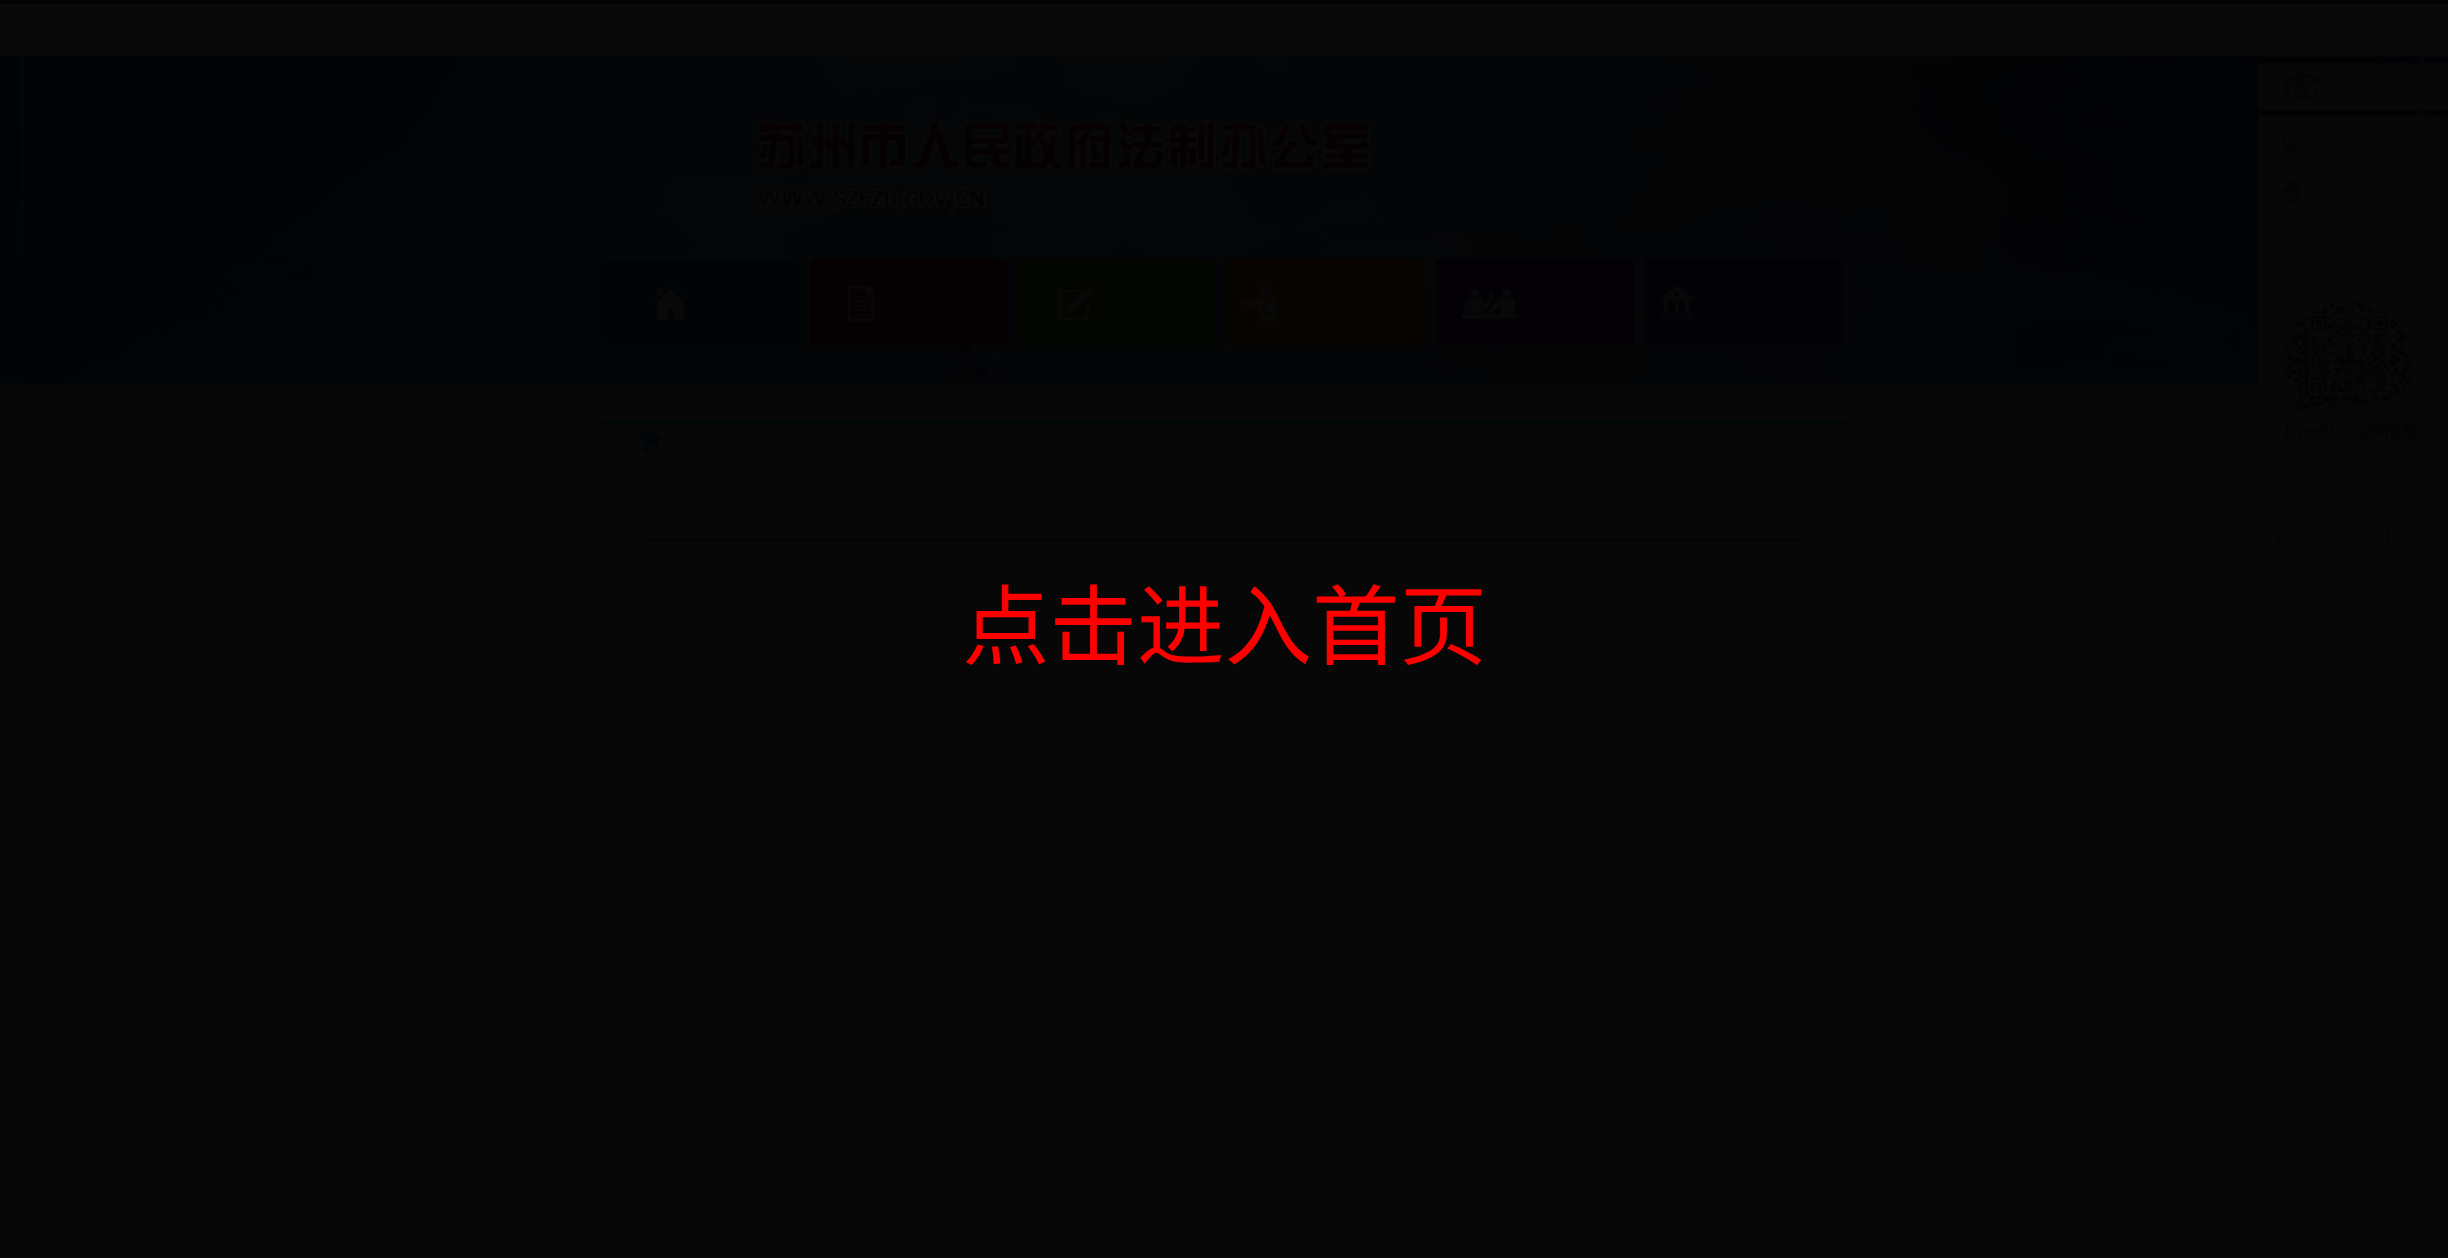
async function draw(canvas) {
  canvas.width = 2448
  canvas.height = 1258
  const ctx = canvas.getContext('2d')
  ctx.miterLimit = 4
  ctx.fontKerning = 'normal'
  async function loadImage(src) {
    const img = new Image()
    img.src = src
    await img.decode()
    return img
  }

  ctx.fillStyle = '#fff'
  ctx.fillRect(0, 0, 2448, 1258)
  ctx.drawImage(await loadImage('image0.png'), 0, 0, 2448, 384)
  ctx.drawImage(await loadImage('image1.png'), 756, 118, 616, 98)
  ctx.drawImage(await loadImage('image2.png'), 601, 258, 198, 87)
  ctx.drawImage(await loadImage('image3.png'), 810, 258, 198, 87)
  ctx.drawImage(await loadImage('image4.png'), 1018, 258, 199, 87)
  ctx.drawImage(await loadImage('image5.png'), 1227, 258, 198, 87)
  ctx.drawImage(await loadImage('image6.png'), 1436, 258, 198, 87)
  ctx.drawImage(await loadImage('image7.png'), 1645, 258, 198, 87)
  ctx.drawImage(await loadImage('image8.png'), 2258, 63, 190, 48)
  ctx.drawImage(await loadImage('image9.png'), 2285, 72, 35, 28)
  ctx.drawImage(await loadImage('image10.png'), 2424, 66, 21, 22)
  ctx.fillStyle = '#070707'
  ctx.fillRect(0, 384, 2448, 874)
  ctx.drawImage(await loadImage('image11.png'), 2258, 114, 190, 351)
  ctx.drawImage(await loadImage('image12.png'), 2280, 128, 19, 27)
  ctx.drawImage(await loadImage('image13.png'), 2280, 179, 22, 26)
  ctx.drawImage(await loadImage('image14.png'), 2280, 231, 22, 23)
  ctx.drawImage(await loadImage('image15.png'), 2283, 301, 136, 140)
  ctx.drawImage(await loadImage('image16.png'), 2258, 483, 190, 102)
  ctx.drawImage(await loadImage('image17.png'), 602, 426, 1246, 34)
  ctx.fillStyle = '#000507'
  ctx.fillRect(601, 421, 1248, 3)
  ctx.drawImage(await loadImage('image18.png'), 640, 431, 22, 22)
  ctx.fillStyle = '#020506'
  ctx.fillRect(649, 539, 1151, 3)
  ctx.font = '87.5px Noto Sans CJK SC'
  ctx.fillStyle = '#f00'
  ctx.fillText('点击进入首页', 962, 658)
}

draw(document.querySelector('canvas'))
